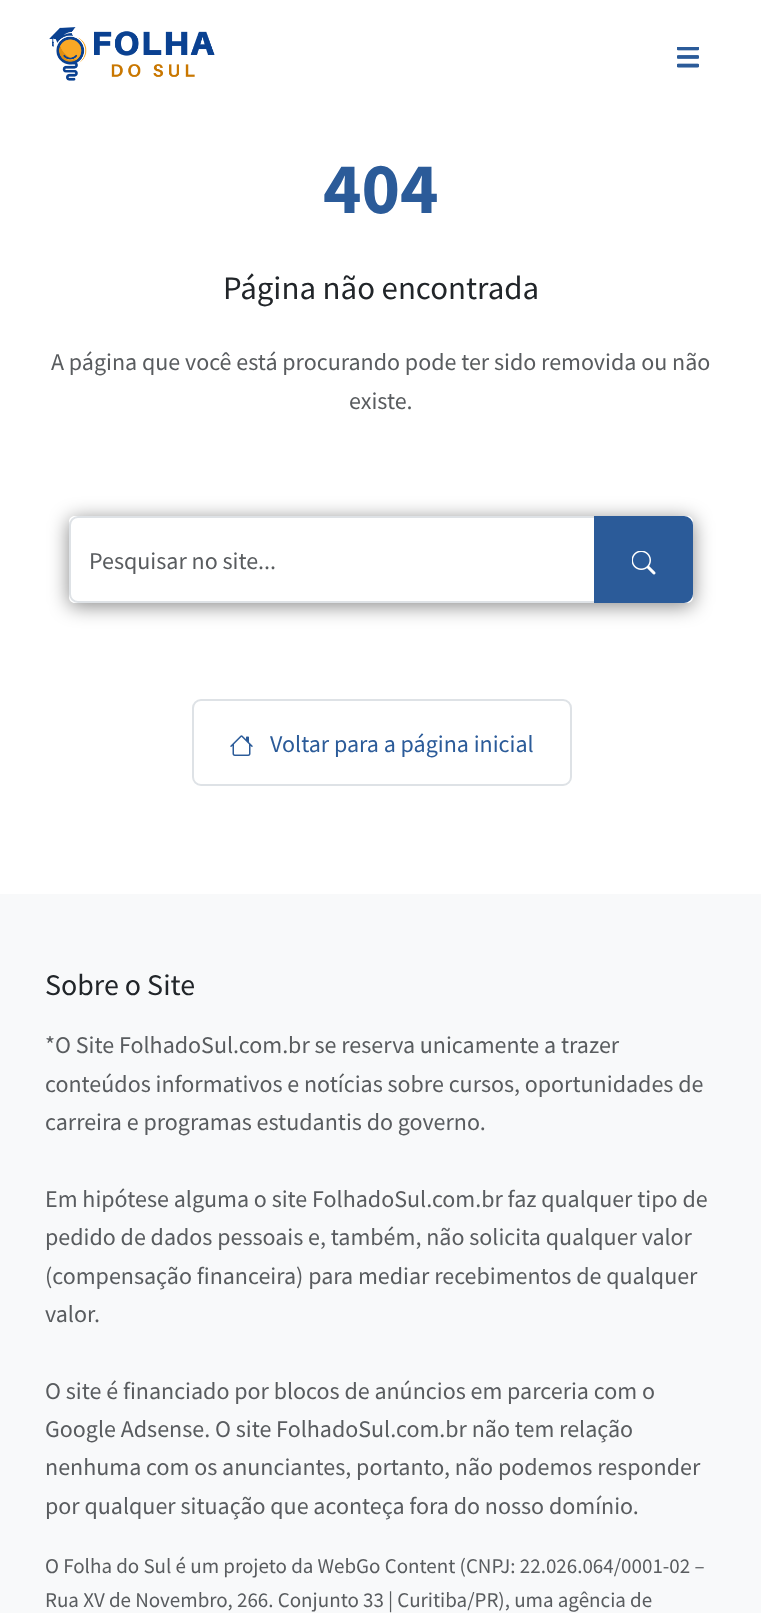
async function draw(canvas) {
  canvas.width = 761
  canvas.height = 1613
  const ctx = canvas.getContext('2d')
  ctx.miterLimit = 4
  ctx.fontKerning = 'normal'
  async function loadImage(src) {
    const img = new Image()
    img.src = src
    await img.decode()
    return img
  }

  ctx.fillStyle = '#fff'
  ctx.fillRect(0, 0, 761, 1613)
  ctx.drawImage(await loadImage('image0.png'), 49, 27, 166, 54)
  ctx.drawImage(await loadImage('image1.png'), 677, 47, 22, 21)
  ctx.font = 'bold 73px Source Sans Pro'
  ctx.fillStyle = '#2b5b99'
  ctx.fillText('404', 323, 213)
  ctx.font = '32.9px Source Sans Pro'
  ctx.fillStyle = '#212529'
  ctx.fillText('Página não encontrada', 223, 299)
  ctx.font = '24px Source Sans Pro'
  ctx.fillStyle = '#595c5f'
  ctx.fillText('A página que você está procurando pode ter sido removida ou não', 51, 370)
  ctx.fillText('existe.', 349, 409)
  ctx.save()
  ctx.beginPath()
  ctx.moveTo(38, 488)
  ctx.lineTo(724, 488)
  ctx.lineTo(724, 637)
  ctx.lineTo(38, 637)
  ctx.closePath()
  ctx.moveTo(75, 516)
  ctx.lineTo(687, 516)
  ctx.bezierCurveTo(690.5, 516, 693, 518.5, 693, 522)
  ctx.lineTo(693, 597)
  ctx.bezierCurveTo(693, 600.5, 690.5, 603, 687, 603)
  ctx.lineTo(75, 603)
  ctx.bezierCurveTo(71.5, 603, 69, 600.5, 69, 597)
  ctx.lineTo(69, 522)
  ctx.bezierCurveTo(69, 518.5, 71.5, 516, 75, 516)
  ctx.closePath()
  ctx.clip('evenodd')
  ctx.fillStyle = '#00000078'
  ctx.filter = 'blur(10px)'
  ctx.beginPath()
  ctx.roundRect(69, 519, 624, 87, 6)
  ctx.fill()
  ctx.filter = 'none'
  ctx.restore()
  ctx.beginPath()
  ctx.roundRect(70, 517, 525, 85, [8, 0, 0, 8])
  ctx.strokeStyle = '#dee2e6'
  ctx.lineWidth = 2
  ctx.stroke()
  ctx.fillText('Pesquisar no site...', 89, 569)
  ctx.fillStyle = '#2b5b99'
  ctx.beginPath()
  ctx.roundRect(595, 517, 97, 85, [0, 8, 8, 0])
  ctx.fill()
  ctx.strokeStyle = '#2b5b99'
  ctx.stroke()
  ctx.drawImage(await loadImage('image2.png'), 632, 551, 24, 24)
  ctx.beginPath()
  ctx.roundRect(193, 700, 378, 85, 8)
  ctx.strokeStyle = '#dee2e6'
  ctx.stroke()
  ctx.drawImage(await loadImage('image3.png'), 230, 735, 23, 21)
  ctx.fillText('Voltar para a página inicial', 270, 752)
  ctx.fillStyle = '#f8f9fa'
  ctx.fillRect(0, 894, 761, 719)
  ctx.font = '30px Source Sans Pro'
  ctx.fillStyle = '#212529'
  ctx.fillText('Sobre o Site', 45, 995)
  ctx.font = '24px Source Sans Pro'
  ctx.fillStyle = '#595c5f'
  ctx.fillText('*O Site FolhadoSul.com.br se reserva unicamente a trazer', 45, 1053)
  ctx.fillText('conteúdos informativos e notícias sobre cursos, oportunidades de', 45, 1092)
  ctx.fillText('carreira e programas estudantis do governo.', 45, 1130)
  ctx.fillText('Em hipótese alguma o site FolhadoSul.com.br faz qualquer tipo de', 45, 1207)
  ctx.fillText('pedido de dados pessoais e, também, não solicita qualquer valor', 45, 1245)
  ctx.fillText('(compensação financeira) para mediar recebimentos de qualquer', 45, 1284)
  ctx.fillText('valor.', 45, 1322)
  ctx.fillText('O site é financiado por blocos de anúncios em parceria com o', 45, 1399)
  ctx.fillText('Google Adsense. O site FolhadoSul.com.br não tem relação', 45, 1437)
  ctx.fillText('nenhuma com os anunciantes, portanto, não podemos responder', 45, 1475)
  ctx.fillText('por qualquer situação que aconteça fora do nosso domínio.', 45, 1514)
  ctx.font = '21px Source Sans Pro'
  ctx.fillText('O Folha do Sul é um projeto da WebGo Content (CNPJ: 22.026.064/0001-02 –', 45, 1573)
  ctx.fillText('Rua XV de Novembro, 266. Conjunto 33 | Curitiba/PR), uma agência de', 45, 1607)
}

draw(document.querySelector('canvas'))
